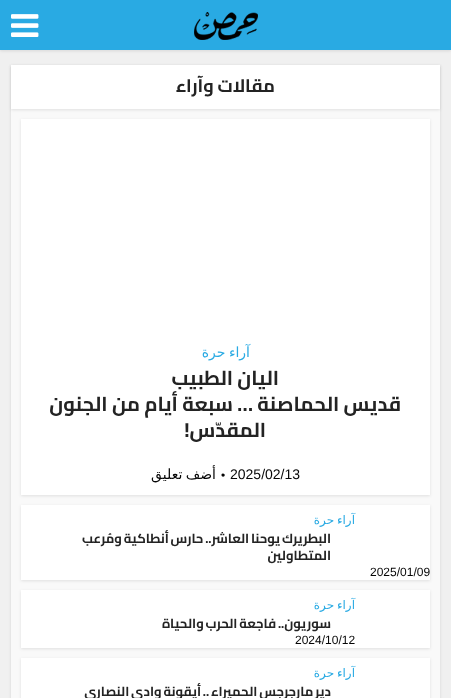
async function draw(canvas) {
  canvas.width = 451
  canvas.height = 698
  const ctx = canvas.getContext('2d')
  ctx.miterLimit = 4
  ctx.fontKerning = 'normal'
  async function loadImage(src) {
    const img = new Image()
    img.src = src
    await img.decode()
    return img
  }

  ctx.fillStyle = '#f0f0f0'
  ctx.fillRect(0, 0, 451, 698)
  ctx.fillStyle = '#0000001a'
  ctx.filter = 'blur(1.5px)'
  ctx.beginPath()
  ctx.rect(0, 1, 451, 50)
  ctx.fill()
  ctx.filter = 'none'
  ctx.fillStyle = '#29aae3'
  ctx.fillRect(0, 0, 451, 50)
  ctx.drawImage(await loadImage('image0.png'), 194, 12, 64, 28)
  ctx.drawImage(await loadImage('image1.png'), 11, 14, 28, 23)
  ctx.fillStyle = '#0000001a'
  ctx.filter = 'blur(1.5px)'
  ctx.beginPath()
  ctx.rect(11, 66, 429, 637)
  ctx.fill()
  ctx.filter = 'none'
  ctx.fillStyle = '#f9f9f9'
  ctx.fillRect(11, 109, 429, 589)
  ctx.fillStyle = '#0000001a'
  ctx.filter = 'blur(1.5px)'
  ctx.beginPath()
  ctx.rect(11, 66, 429, 44)
  ctx.fill()
  ctx.filter = 'none'
  ctx.fillStyle = '#fff'
  ctx.fillRect(11, 65, 429, 44)
  ctx.direction = 'rtl'
  ctx.font = 'bold 18px Cairo'
  ctx.fillStyle = '#232323'
  ctx.fillText('مقالات وآراء', 275, 92)
  ctx.fillStyle = '#0000001a'
  ctx.filter = 'blur(1.5px)'
  ctx.beginPath()
  ctx.rect(21, 120, 409, 376)
  ctx.fill()
  ctx.filter = 'none'
  ctx.fillStyle = '#fff'
  ctx.fillRect(21, 119, 409, 376)
  ctx.wordSpacing = '-1px'
  ctx.font = '14px DejaVu Sans'
  ctx.fillStyle = '#29aae3'
  ctx.fillText('آراء حرة', 250, 357)
  ctx.wordSpacing = '0px'
  ctx.font = 'bold 20px Cairo'
  ctx.fillStyle = '#232323'
  ctx.fillText('اليان الطبيب', 279, 385)
  ctx.fillText('قديس الحماصنة …', 401, 411)
  ctx.fillText('سبعة أيام من الجنون', 233, 411)
  ctx.fillText('المقدّس!', 266, 437)
  ctx.direction = 'ltr'
  ctx.font = '14px Liberation Sans'
  ctx.fillStyle = '#050505'
  ctx.fillText('2025/02/13', 230, 479)
  ctx.font = '12px Liberation Sans'
  ctx.fillText('•', 221, 479)
  ctx.wordSpacing = '-1px'
  ctx.direction = 'rtl'
  ctx.font = '14px DejaVu Sans'
  ctx.fillText('أضف تعليق', 216, 479)
  ctx.fillStyle = '#0000001a'
  ctx.filter = 'blur(1.5px)'
  ctx.beginPath()
  ctx.rect(21, 506, 409, 75)
  ctx.fill()
  ctx.filter = 'none'
  ctx.fillStyle = '#fff'
  ctx.fillRect(21, 505, 409, 75)
  ctx.font = '12px DejaVu Sans'
  ctx.fillStyle = '#29aae3'
  ctx.fillText('آراء حرة', 355, 524)
  ctx.font = 'bold 13px Cairo'
  ctx.fillStyle = '#232323'
  ctx.fillText('البطريرك يوحنا العاشر.. حارس أنطاكية ومُرعب', 331, 543)
  ctx.wordSpacing = '0px'
  ctx.fillText('المتطاولين', 331, 560)
  ctx.direction = 'ltr'
  ctx.font = '12px Liberation Sans'
  ctx.fillStyle = '#050505'
  ctx.fillText('2025/01/09', 370, 576)
  ctx.fillStyle = '#0000001a'
  ctx.filter = 'blur(1.5px)'
  ctx.beginPath()
  ctx.rect(21, 591, 409, 58)
  ctx.fill()
  ctx.filter = 'none'
  ctx.fillStyle = '#fff'
  ctx.fillRect(21, 590, 409, 58)
  ctx.wordSpacing = '-1px'
  ctx.direction = 'rtl'
  ctx.font = '12px DejaVu Sans'
  ctx.fillStyle = '#29aae3'
  ctx.fillText('آراء حرة', 355, 609)
  ctx.font = 'bold 13px Cairo'
  ctx.fillStyle = '#232323'
  ctx.fillText('سوريون.. فاجعة الحرب والحياة', 331, 628)
  ctx.wordSpacing = '0px'
  ctx.direction = 'ltr'
  ctx.font = '12px Liberation Sans'
  ctx.fillStyle = '#050505'
  ctx.fillText('2024/10/12', 295, 644)
  ctx.fillStyle = '#0000001a'
  ctx.filter = 'blur(1.5px)'
  ctx.beginPath()
  ctx.rect(21, 659, 409, 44)
  ctx.fill()
  ctx.filter = 'none'
  ctx.fillStyle = '#fff'
  ctx.fillRect(21, 658, 409, 40)
  ctx.wordSpacing = '-1px'
  ctx.direction = 'rtl'
  ctx.font = '12px DejaVu Sans'
  ctx.fillStyle = '#29aae3'
  ctx.fillText('آراء حرة', 355, 677)
  ctx.font = 'bold 13px Cairo'
  ctx.fillStyle = '#232323'
  ctx.fillText('دير مارجرجس الحميراء .. أيقونة وادي النصارى', 331, 696)
}

draw(document.querySelector('canvas'))
